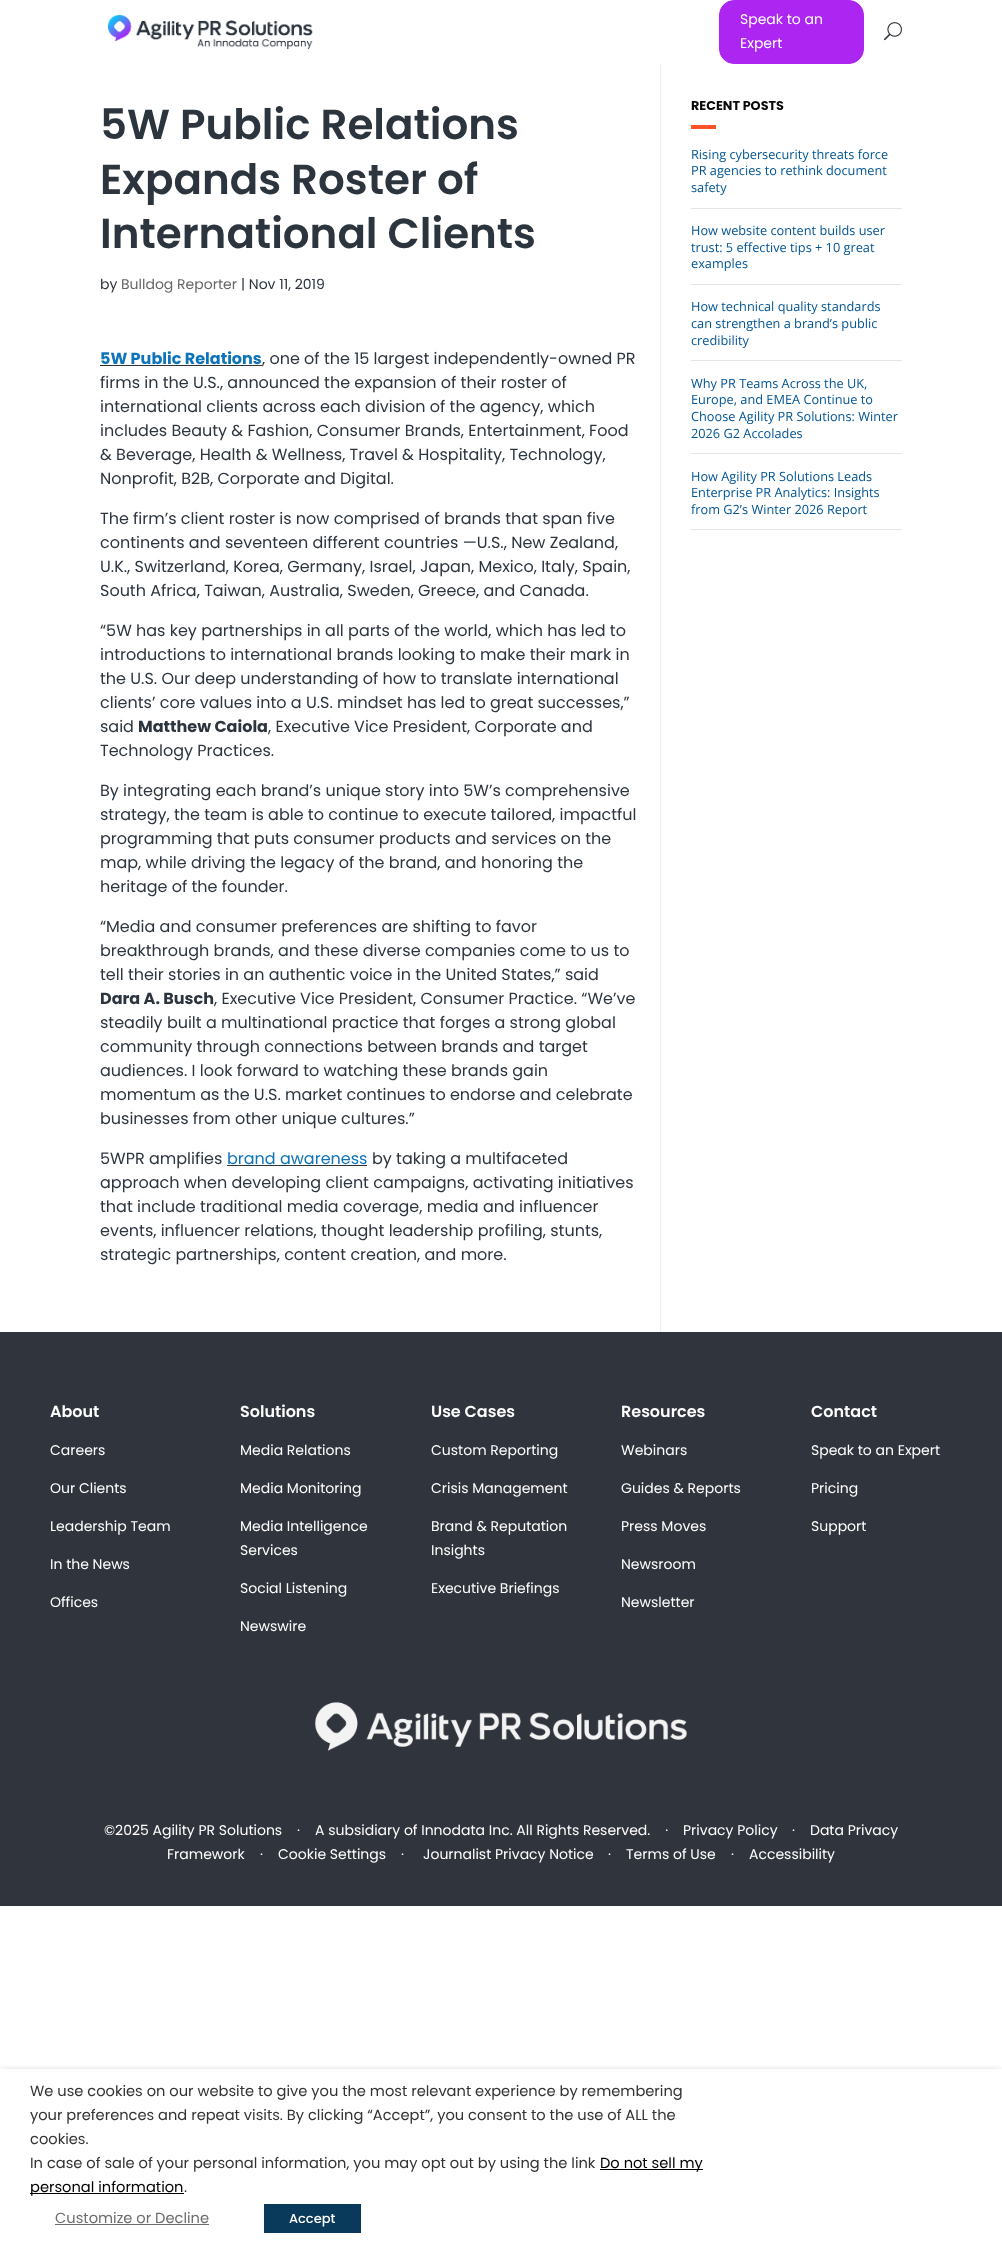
async function draw(canvas) {
  canvas.width = 1002
  canvas.height = 2248
  const ctx = canvas.getContext('2d')
  ctx.miterLimit = 4
  ctx.fontKerning = 'normal'
  async function loadImage(src) {
    const img = new Image()
    img.src = src
    await img.decode()
    return img
  }

  ctx.fillStyle = '#fff'
  ctx.fillRect(0, 0, 1002, 2248)
  ctx.drawImage(await loadImage('image0.png'), 107, 14, 206, 36)
  ctx.fillStyle = '#ad25f0'
  ctx.beginPath()
  ctx.roundRect(719.5, 0.5, 144, 63, 14.5)
  ctx.fill()
  ctx.strokeStyle = '#ad25f0'
  ctx.stroke()
  ctx.font = '14px Poppins'
  ctx.fillStyle = '#fff'
  ctx.fillText('Speak to an', 740, 24)
  ctx.fillText('Expert', 740, 48)
  ctx.drawImage(await loadImage('image1.png'), 884, 22, 18, 19)
  ctx.fillStyle = '#eee'
  ctx.fillRect(660, 64, 1, 1268)
  ctx.font = '600 42px Poppins'
  ctx.fillStyle = '#2c353e'
  ctx.fillText('5W Public Relations', 100, 139)
  ctx.fillText('Expands Roster of', 100, 194)
  ctx.fillText('International Clients', 100, 248)
  ctx.font = '14px Poppins'
  ctx.fillText('by', 100, 289)
  ctx.fillStyle = '#666'
  ctx.fillText('Bulldog Reporter', 121, 289)
  ctx.fillStyle = '#2c353e'
  ctx.fillText('| Nov 11, 2019', 241, 289)
  ctx.font = 'bold 16px Poppins'
  ctx.fillStyle = '#0d74ba'
  ctx.fillText('5W Public Relations', 100, 364)
  ctx.fillStyle = '#2c353e'
  ctx.fillRect(100, 365, 162, 1)
  ctx.font = '16px Poppins'
  ctx.fillText(', one of the 15 largest independently-owned PR', 262, 364)
  ctx.fillText('firms in the U.S., announced the expansion of their roster of', 100, 388)
  ctx.fillText('international clients across each division of the agency, which', 100, 412)
  ctx.fillText('includes Beauty & Fashion, Consumer Brands, Entertainment, Food', 100, 436)
  ctx.fillText('& Beverage, Health & Wellness, Travel & Hospitality, Technology,', 100, 460)
  ctx.fillText('Nonprofit, B2B, Corporate and Digital.', 100, 484)
  ctx.fillText('The firm’s client roster is now comprised of brands that span five', 100, 524)
  ctx.fillText('continents and seventeen different countries —U.S., New Zealand,', 100, 548)
  ctx.fillText('U.K., Switzerland, Korea, Germany, Israel, Japan, Mexico, Italy, Spain,', 100, 572)
  ctx.fillText('South Africa, Taiwan, Australia, Sweden, Greece, and Canada.', 100, 596)
  ctx.fillText('“5W has key partnerships in all parts of the world, which has led to', 100, 636)
  ctx.fillText('introductions to international brands looking to make their mark in', 100, 660)
  ctx.fillText('the U.S. Our deep understanding of how to translate international', 100, 684)
  ctx.fillText('clients’ core values into a U.S. mindset has led to great successes,”', 100, 708)
  ctx.fillText('said', 100, 732)
  ctx.font = 'bold 16px Poppins'
  ctx.fillText('Matthew Caiola', 138, 732)
  ctx.font = '16px Poppins'
  ctx.fillText(', Executive Vice President, Corporate and', 268, 732)
  ctx.fillText('Technology Practices.', 100, 756)
  ctx.fillText('By integrating each brand’s unique story into 5W’s comprehensive', 100, 796)
  ctx.fillText('strategy, the team is able to continue to execute tailored, impactful', 100, 820)
  ctx.fillText('programming that puts consumer products and services on the', 100, 844)
  ctx.fillText('map, while driving the legacy of the brand, and honoring the', 100, 868)
  ctx.fillText('heritage of the founder.', 100, 892)
  ctx.fillText('“Media and consumer preferences are shifting to favor', 100, 932)
  ctx.fillText('breakthrough brands, and these diverse companies come to us to', 100, 956)
  ctx.fillText('tell their stories in an authentic voice in the United States,” said', 100, 980)
  ctx.font = 'bold 16px Poppins'
  ctx.fillText('Dara A. Busch', 100, 1004)
  ctx.font = '16px Poppins'
  ctx.fillText(', Executive Vice President, Consumer Practice. “We’ve', 214, 1004)
  ctx.fillText('steadily built a multinational practice that forges a strong global', 100, 1028)
  ctx.fillText('community through connections between brands and target', 100, 1052)
  ctx.fillText('audiences. I look forward to watching these brands gain', 100, 1076)
  ctx.fillText('momentum as the U.S. market continues to endorse and celebrate', 100, 1100)
  ctx.fillText('businesses from other unique cultures.”', 100, 1124)
  ctx.fillText('5WPR amplifies', 100, 1164)
  ctx.fillStyle = '#0d74ba'
  ctx.fillText('brand awareness', 227, 1164)
  ctx.fillStyle = '#2c353e'
  ctx.fillRect(227, 1165, 140, 1)
  ctx.fillText('by taking a multifaceted', 372, 1164)
  ctx.fillText('approach when developing client campaigns, activating initiatives', 100, 1188)
  ctx.fillText('that include traditional media coverage, media and influencer', 100, 1212)
  ctx.fillText('events, influencer relations, thought leadership profiling, stunts,', 100, 1236)
  ctx.fillText('strategic partnerships, content creation, and more.', 100, 1260)
  ctx.font = 'bold 12.75px Poppins'
  ctx.fillStyle = '#0a0a0a'
  ctx.fillText('RECENT POSTS', 691, 110)
  ctx.fillStyle = '#ff5126'
  ctx.fillRect(691, 125, 25, 4)
  ctx.fillStyle = '#e5e5e5'
  ctx.fillRect(691, 208, 211, 1)
  ctx.font = '12.75px Open Sans'
  ctx.fillStyle = '#005494'
  ctx.fillText('Rising cybersecurity threats force', 691, 159)
  ctx.fillText('PR agencies to rethink document', 691, 175)
  ctx.fillText('safety', 691, 192)
  ctx.fillStyle = '#e5e5e5'
  ctx.fillRect(691, 284, 211, 1)
  ctx.fillStyle = '#005494'
  ctx.fillText('How website content builds user', 691, 235)
  ctx.fillText('trust: 5 effective tips + 10 great', 691, 252)
  ctx.fillText('examples', 691, 268)
  ctx.fillStyle = '#e5e5e5'
  ctx.fillRect(691, 360, 211, 1)
  ctx.fillStyle = '#005494'
  ctx.fillText('How technical quality standards', 691, 311)
  ctx.fillText('can strengthen a brand’s public', 691, 328)
  ctx.fillText('credibility', 691, 345)
  ctx.fillStyle = '#e5e5e5'
  ctx.fillRect(691, 453, 211, 1)
  ctx.fillStyle = '#005494'
  ctx.fillText('Why PR Teams Across the UK,', 691, 388)
  ctx.fillText('Europe, and EMEA Continue to', 691, 404)
  ctx.fillText('Choose Agility PR Solutions: Winter', 691, 421)
  ctx.fillText('2026 G2 Accolades', 691, 438)
  ctx.fillStyle = '#e5e5e5'
  ctx.fillRect(691, 529, 211, 1)
  ctx.fillStyle = '#005494'
  ctx.fillText('How Agility PR Solutions Leads', 691, 481)
  ctx.fillText('Enterprise PR Analytics: Insights', 691, 497)
  ctx.fillText('from G2’s Winter 2026 Report', 691, 514)
  ctx.fillStyle = '#30343c'
  ctx.fillRect(0, 1332, 1002, 574)
  ctx.font = '600 16px Poppins'
  ctx.fillStyle = '#fff'
  ctx.fillText('About', 50, 1417)
  ctx.font = '14px Poppins'
  ctx.fillText('Careers', 50, 1455)
  ctx.fillText('Our Clients', 50, 1493)
  ctx.fillText('Leadership Team', 50, 1531)
  ctx.fillText('In the News', 50, 1569)
  ctx.fillText('Offices', 50, 1607)
  ctx.font = '600 16px Poppins'
  ctx.fillText('Solutions', 240, 1417)
  ctx.font = '14px Poppins'
  ctx.fillText('Media Relations', 240, 1455)
  ctx.fillText('Media Monitoring', 240, 1493)
  ctx.fillText('Media Intelligence', 240, 1531)
  ctx.fillText('Services', 240, 1555)
  ctx.fillText('Social Listening', 240, 1593)
  ctx.fillText('Newswire', 240, 1631)
  ctx.font = '600 16px Poppins'
  ctx.fillText('Use Cases', 431, 1417)
  ctx.font = '14px Poppins'
  ctx.fillText('Custom Reporting', 431, 1455)
  ctx.fillText('Crisis Management', 431, 1493)
  ctx.fillText('Brand & Reputation', 431, 1531)
  ctx.fillText('Insights', 431, 1555)
  ctx.fillText('Executive Briefings', 431, 1593)
  ctx.font = '600 16px Poppins'
  ctx.fillText('Resources', 621, 1417)
  ctx.font = '14px Poppins'
  ctx.fillText('Webinars', 621, 1455)
  ctx.fillText('Guides & Reports', 621, 1493)
  ctx.fillText('Press Moves', 621, 1531)
  ctx.fillText('Newsroom', 621, 1569)
  ctx.fillText('Newsletter', 621, 1607)
  ctx.font = '600 16px Poppins'
  ctx.fillText('Contact', 811, 1417)
  ctx.font = '14px Poppins'
  ctx.fillText('Speak to an Expert', 811, 1455)
  ctx.fillText('Pricing', 811, 1493)
  ctx.fillText('Support', 811, 1531)
  ctx.drawImage(await loadImage('image2.png'), 314, 1702, 373, 49)
  ctx.fillText('©2025 Agility PR Solutions    ·    A subsidiary of Innodata Inc. All Rights Reserved.    ·', 104, 1835)
  ctx.fillText('Privacy Policy', 683, 1835)
  ctx.fillText('·', 792, 1835)
  ctx.fillText('Data Privacy', 810, 1835)
  ctx.fillText('Framework', 167, 1859)
  ctx.fillText('·', 260, 1859)
  ctx.fillText('Cookie Settings', 278, 1859)
  ctx.fillText('·', 401, 1859)
  ctx.fillText('Journalist Privacy Notice', 423, 1859)
  ctx.fillText('·', 608, 1859)
  ctx.fillText('Terms of Use', 626, 1859)
  ctx.fillText('·', 731, 1859)
  ctx.fillText('Accessibility', 749, 1859)
  ctx.save()
  ctx.beginPath()
  ctx.rect(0, 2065, 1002, 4)
  ctx.clip()
  ctx.fillStyle = '#00000080'
  ctx.filter = 'blur(5px)'
  ctx.beginPath()
  ctx.rect(0, 2074, 1002, 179)
  ctx.fill()
  ctx.filter = 'none'
  ctx.restore()
  ctx.font = '14.65px Poppins'
  ctx.fillStyle = '#333'
  ctx.fillText('We use cookies on our website to give you the most relevant experience by remembering', 30, 2096)
  ctx.fillText('your preferences and repeat visits. By clicking “Accept”, you consent to the use of ALL the', 30, 2120)
  ctx.fillText('cookies.', 30, 2144)
  ctx.fillText('In case of sale of your personal information, you may opt out by using the link', 30, 2168)
  ctx.fillStyle = '#000'
  ctx.fillRect(600, 2169, 103, 1)
  ctx.fillText('Do not sell my', 600, 2168)
  ctx.fillRect(30, 2193, 154, 1)
  ctx.fillText('personal information', 30, 2192)
  ctx.fillStyle = '#333'
  ctx.fillText('.', 184, 2192)
  ctx.fillStyle = '#6d6d6d'
  ctx.fillText('Customize or Decline', 55, 2223)
  ctx.fillRect(55, 2224, 154, 1)
  ctx.fillStyle = '#0a3a5b'
  ctx.fillRect(264, 2204, 97, 29)
  ctx.font = '500 13px Poppins'
  ctx.fillStyle = '#fff'
  ctx.fillText('Accept', 289, 2223)
}

draw(document.querySelector('canvas'))
